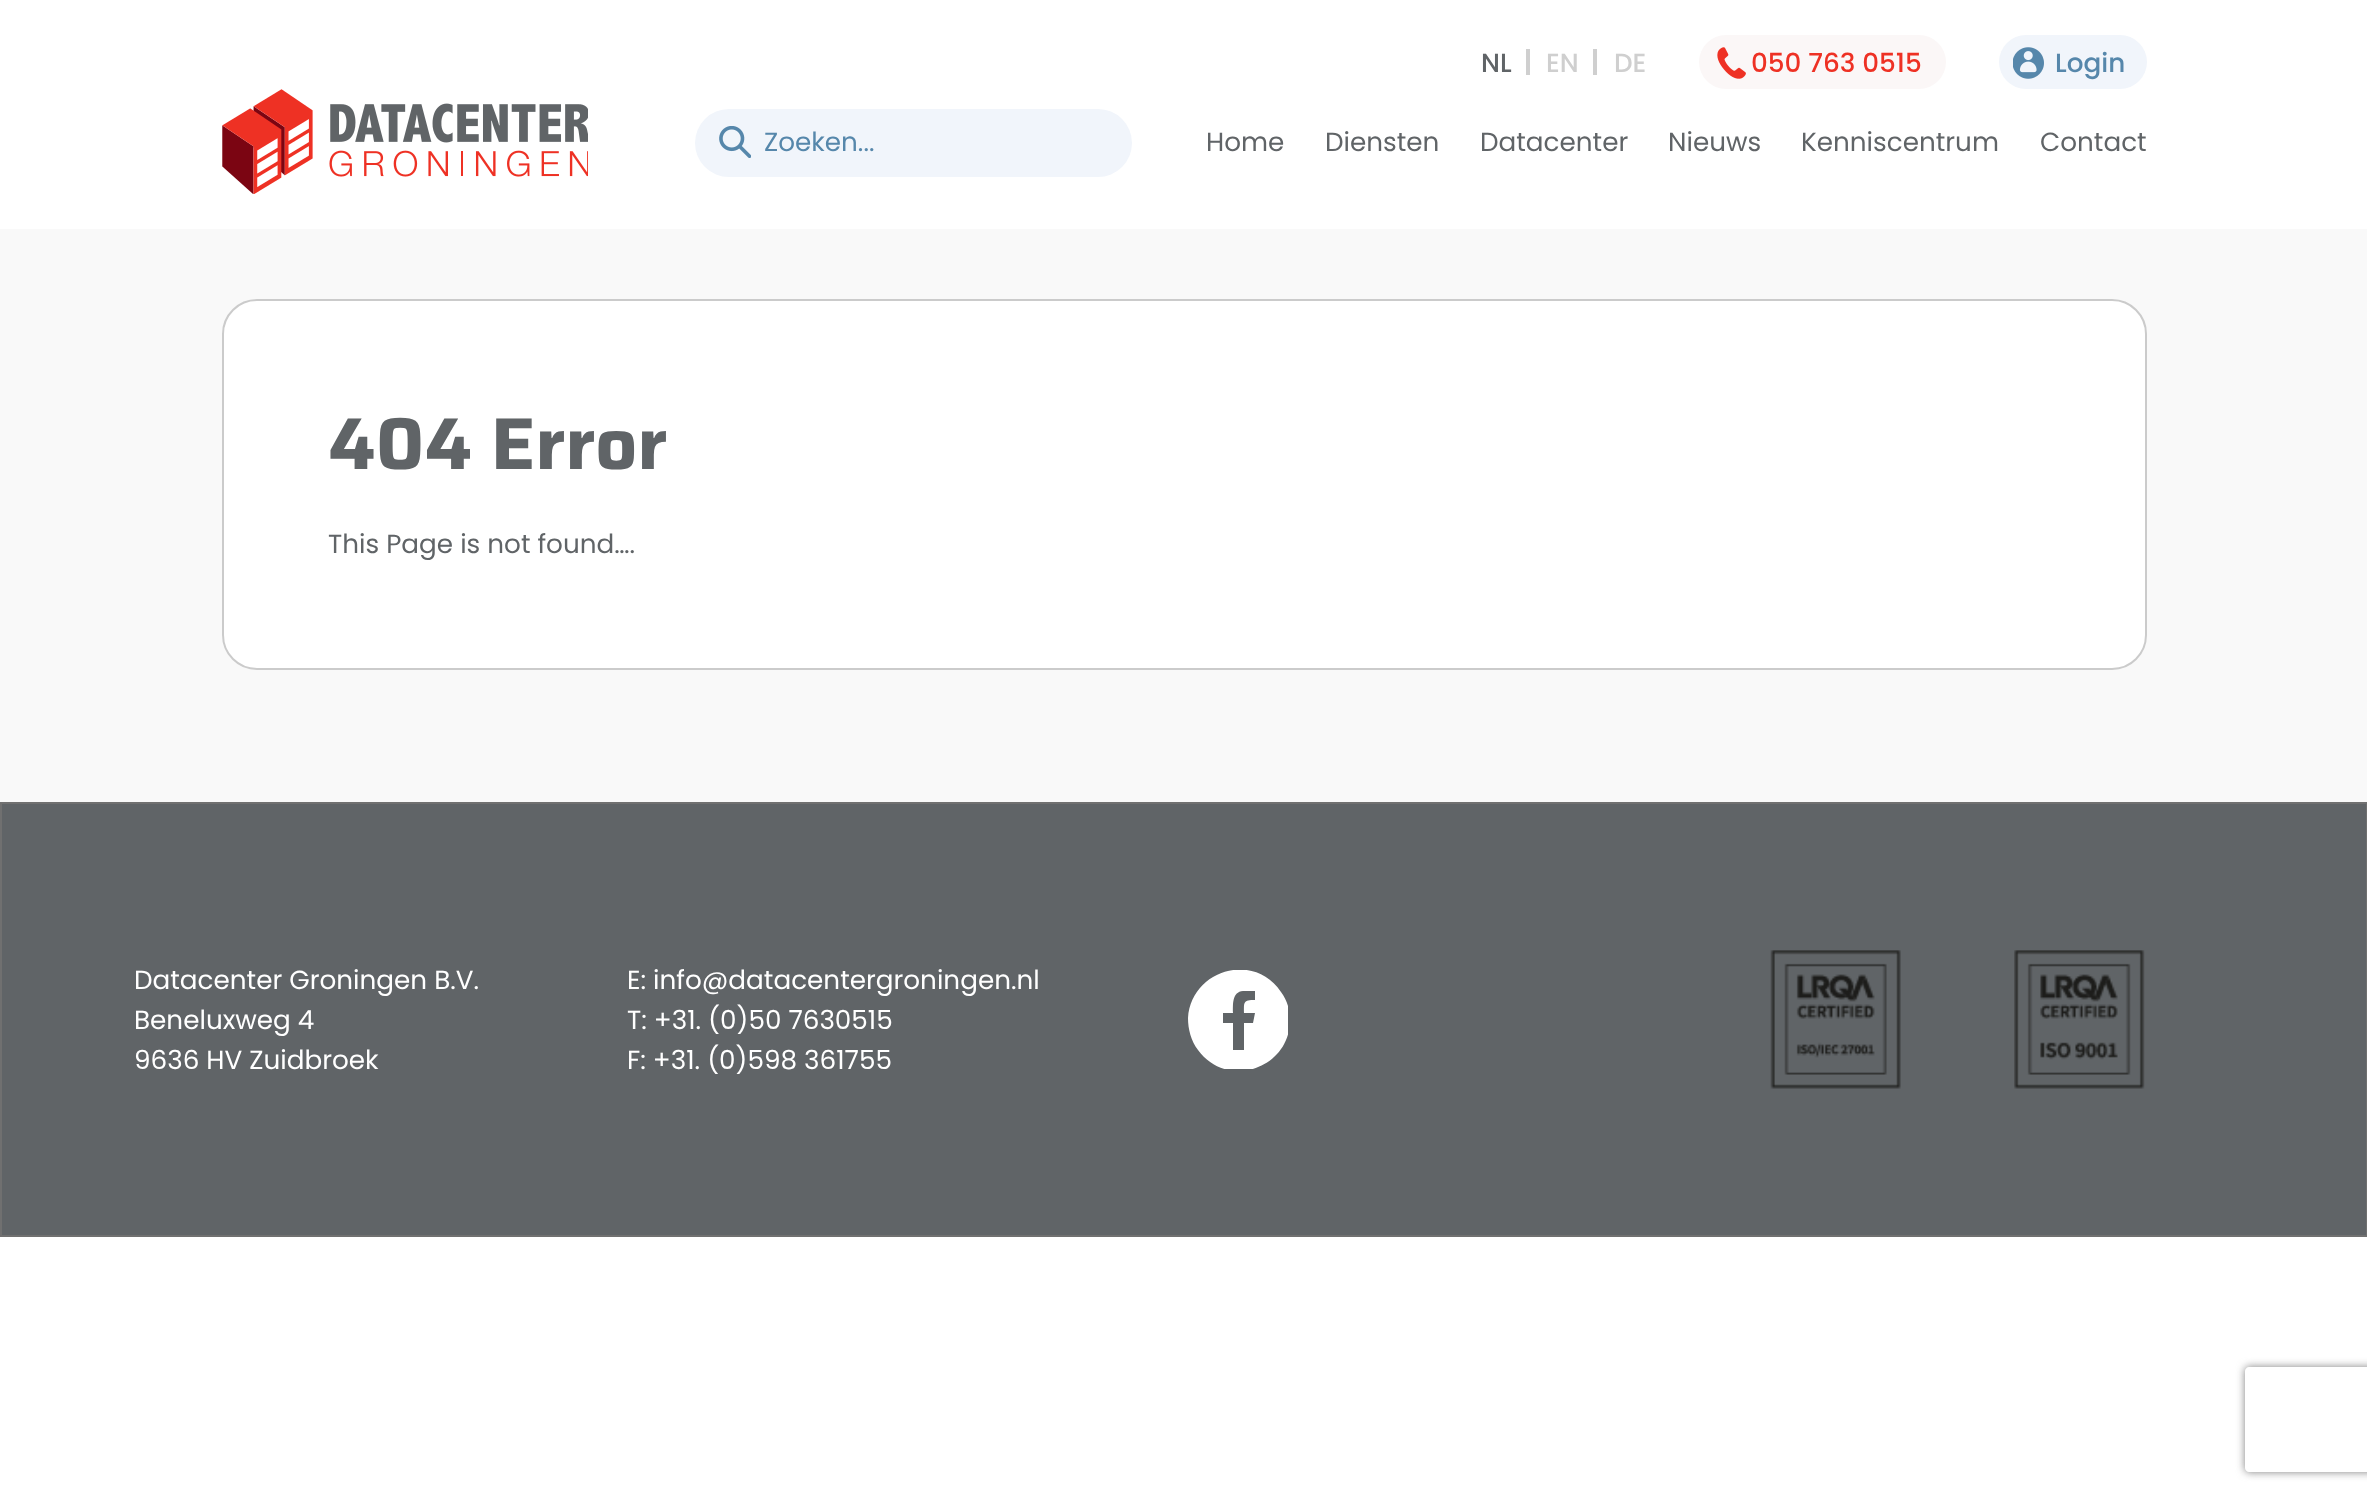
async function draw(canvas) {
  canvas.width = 2367
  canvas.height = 1495
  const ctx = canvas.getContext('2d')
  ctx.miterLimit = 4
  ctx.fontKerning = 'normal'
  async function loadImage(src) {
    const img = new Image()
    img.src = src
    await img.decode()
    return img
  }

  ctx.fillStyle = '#fff'
  ctx.fillRect(0, 0, 2367, 1495)
  ctx.font = '500 26.25px Poppins'
  ctx.fillStyle = '#606467'
  ctx.fillText('NL', 1481, 72)
  ctx.fillStyle = '#cfcfcf'
  ctx.fillRect(1526, 49, 4, 26)
  ctx.fillText('EN', 1546, 72)
  ctx.fillRect(1593, 49, 4, 26)
  ctx.fillText('DE', 1614, 72)
  ctx.fillStyle = '#fbf7f7'
  ctx.beginPath()
  ctx.roundRect(1699, 35, 247, 54, 27)
  ctx.fill()
  ctx.drawImage(await loadImage('image0.png'), 1717, 47, 29, 32)
  ctx.fillStyle = '#ee3124'
  ctx.fillText('050 763 0515', 1751, 72)
  ctx.fillStyle = '#f1f5fb'
  ctx.beginPath()
  ctx.roundRect(1999, 35, 148, 54, 27)
  ctx.fill()
  ctx.drawImage(await loadImage('image1.png'), 2013, 47, 31, 32)
  ctx.fillStyle = '#5687ab'
  ctx.fillText('Login', 2055, 72)
  ctx.drawImage(await loadImage('image2.png'), 222, 89, 366, 105)
  ctx.fillStyle = '#f1f5fb'
  ctx.beginPath()
  ctx.roundRect(695, 109, 437, 68, 34)
  ctx.fill()
  ctx.drawImage(await loadImage('image3.png'), 719, 126, 32, 32)
  ctx.font = '26.25px Poppins'
  ctx.fillStyle = '#5687ab'
  ctx.fillText('Zoeken...', 764, 151)
  ctx.fillStyle = '#606467'
  ctx.fillText('Home', 1206, 151)
  ctx.fillText('Diensten', 1325, 151)
  ctx.fillText('Datacenter', 1480, 151)
  ctx.fillText('Nieuws', 1668, 151)
  ctx.fillText('Kenniscentrum', 1801, 151)
  ctx.fillText('Contact', 2040, 151)
  ctx.fillStyle = '#f9f9f9'
  ctx.fillRect(0, 229, 2367, 573)
  ctx.fillStyle = '#fff'
  ctx.beginPath()
  ctx.roundRect(223, 300, 1923, 369, 34)
  ctx.fill()
  ctx.strokeStyle = '#cbcbcb'
  ctx.lineWidth = 2
  ctx.stroke()
  ctx.font = 'bold 73.5px Saira'
  ctx.fillStyle = '#606467'
  ctx.fillText('404 Error', 328, 469)
  ctx.font = '26.25px Poppins'
  ctx.fillText('This Page is not found….', 328, 553)
  ctx.beginPath()
  ctx.rect(1, 803, 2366, 433)
  ctx.fill()
  ctx.strokeStyle = '#707070'
  ctx.stroke()
  ctx.fillStyle = '#fff'
  ctx.fillText('Datacenter Groningen B.V.', 134, 989)
  ctx.fillText('Beneluxweg 4', 134, 1029)
  ctx.fillText('9636 HV Zuidbroek', 134, 1069)
  ctx.fillText('E: info@datacentergroningen.nl', 627, 989)
  ctx.fillText('T: +31. (0)50 7630515', 627, 1029)
  ctx.fillText('F: +31. (0)598 361755', 627, 1069)
  ctx.save()
  ctx.beginPath()
  ctx.rect(1188, 970, 100, 99)
  ctx.clip()
  ctx.beginPath()
  ctx.moveTo(1290, 1020)
  ctx.bezierCurveTo(1290, 1069, 1227, 1090, 1198, 1050)
  ctx.bezierCurveTo(1191, 1041, 1188, 1029, 1188, 1018)
  ctx.bezierCurveTo(1191, 970, 1254, 951, 1281, 992)
  ctx.bezierCurveTo(1287, 1000, 1290, 1010, 1290, 1020)
  ctx.fill('evenodd')
  ctx.restore()
  ctx.fillStyle = '#606467'
  ctx.beginPath()
  ctx.moveTo(1233, 1050)
  ctx.lineTo(1244, 1050)
  ctx.lineTo(1244, 1023)
  ctx.lineTo(1253, 1023)
  ctx.lineTo(1255, 1013)
  ctx.lineTo(1244, 1013)
  ctx.bezierCurveTo(1244, 1002, 1243, 1000, 1255, 1000)
  ctx.lineTo(1255, 991)
  ctx.lineTo(1243, 991)
  ctx.bezierCurveTo(1232, 992, 1233, 1004, 1233, 1013)
  ctx.lineTo(1223, 1013)
  ctx.lineTo(1223, 1023)
  ctx.lineTo(1233, 1023)
  ctx.closePath()
  ctx.fill('evenodd')
  ctx.drawImage(await loadImage('image4.png'), 1770, 950, 131, 139)
  ctx.drawImage(await loadImage('image5.png'), 2014, 950, 131, 139)
  ctx.save()
  ctx.beginPath()
  ctx.moveTo(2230, 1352)
  ctx.lineTo(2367, 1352)
  ctx.lineTo(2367, 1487)
  ctx.lineTo(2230, 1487)
  ctx.closePath()
  ctx.moveTo(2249, 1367)
  ctx.lineTo(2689, 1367)
  ctx.bezierCurveTo(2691, 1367, 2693, 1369, 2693, 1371)
  ctx.lineTo(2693, 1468)
  ctx.bezierCurveTo(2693, 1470, 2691, 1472, 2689, 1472)
  ctx.lineTo(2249, 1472)
  ctx.bezierCurveTo(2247, 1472, 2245, 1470, 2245, 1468)
  ctx.lineTo(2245, 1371)
  ctx.bezierCurveTo(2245, 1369, 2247, 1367, 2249, 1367)
  ctx.closePath()
  ctx.clip('evenodd')
  ctx.fillStyle = '#808080'
  ctx.filter = 'blur(4.5px)'
  ctx.beginPath()
  ctx.roundRect(2245, 1367, 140, 105, 4)
  ctx.fill()
  ctx.filter = 'none'
  ctx.restore()
}

draw(document.querySelector('canvas'))
